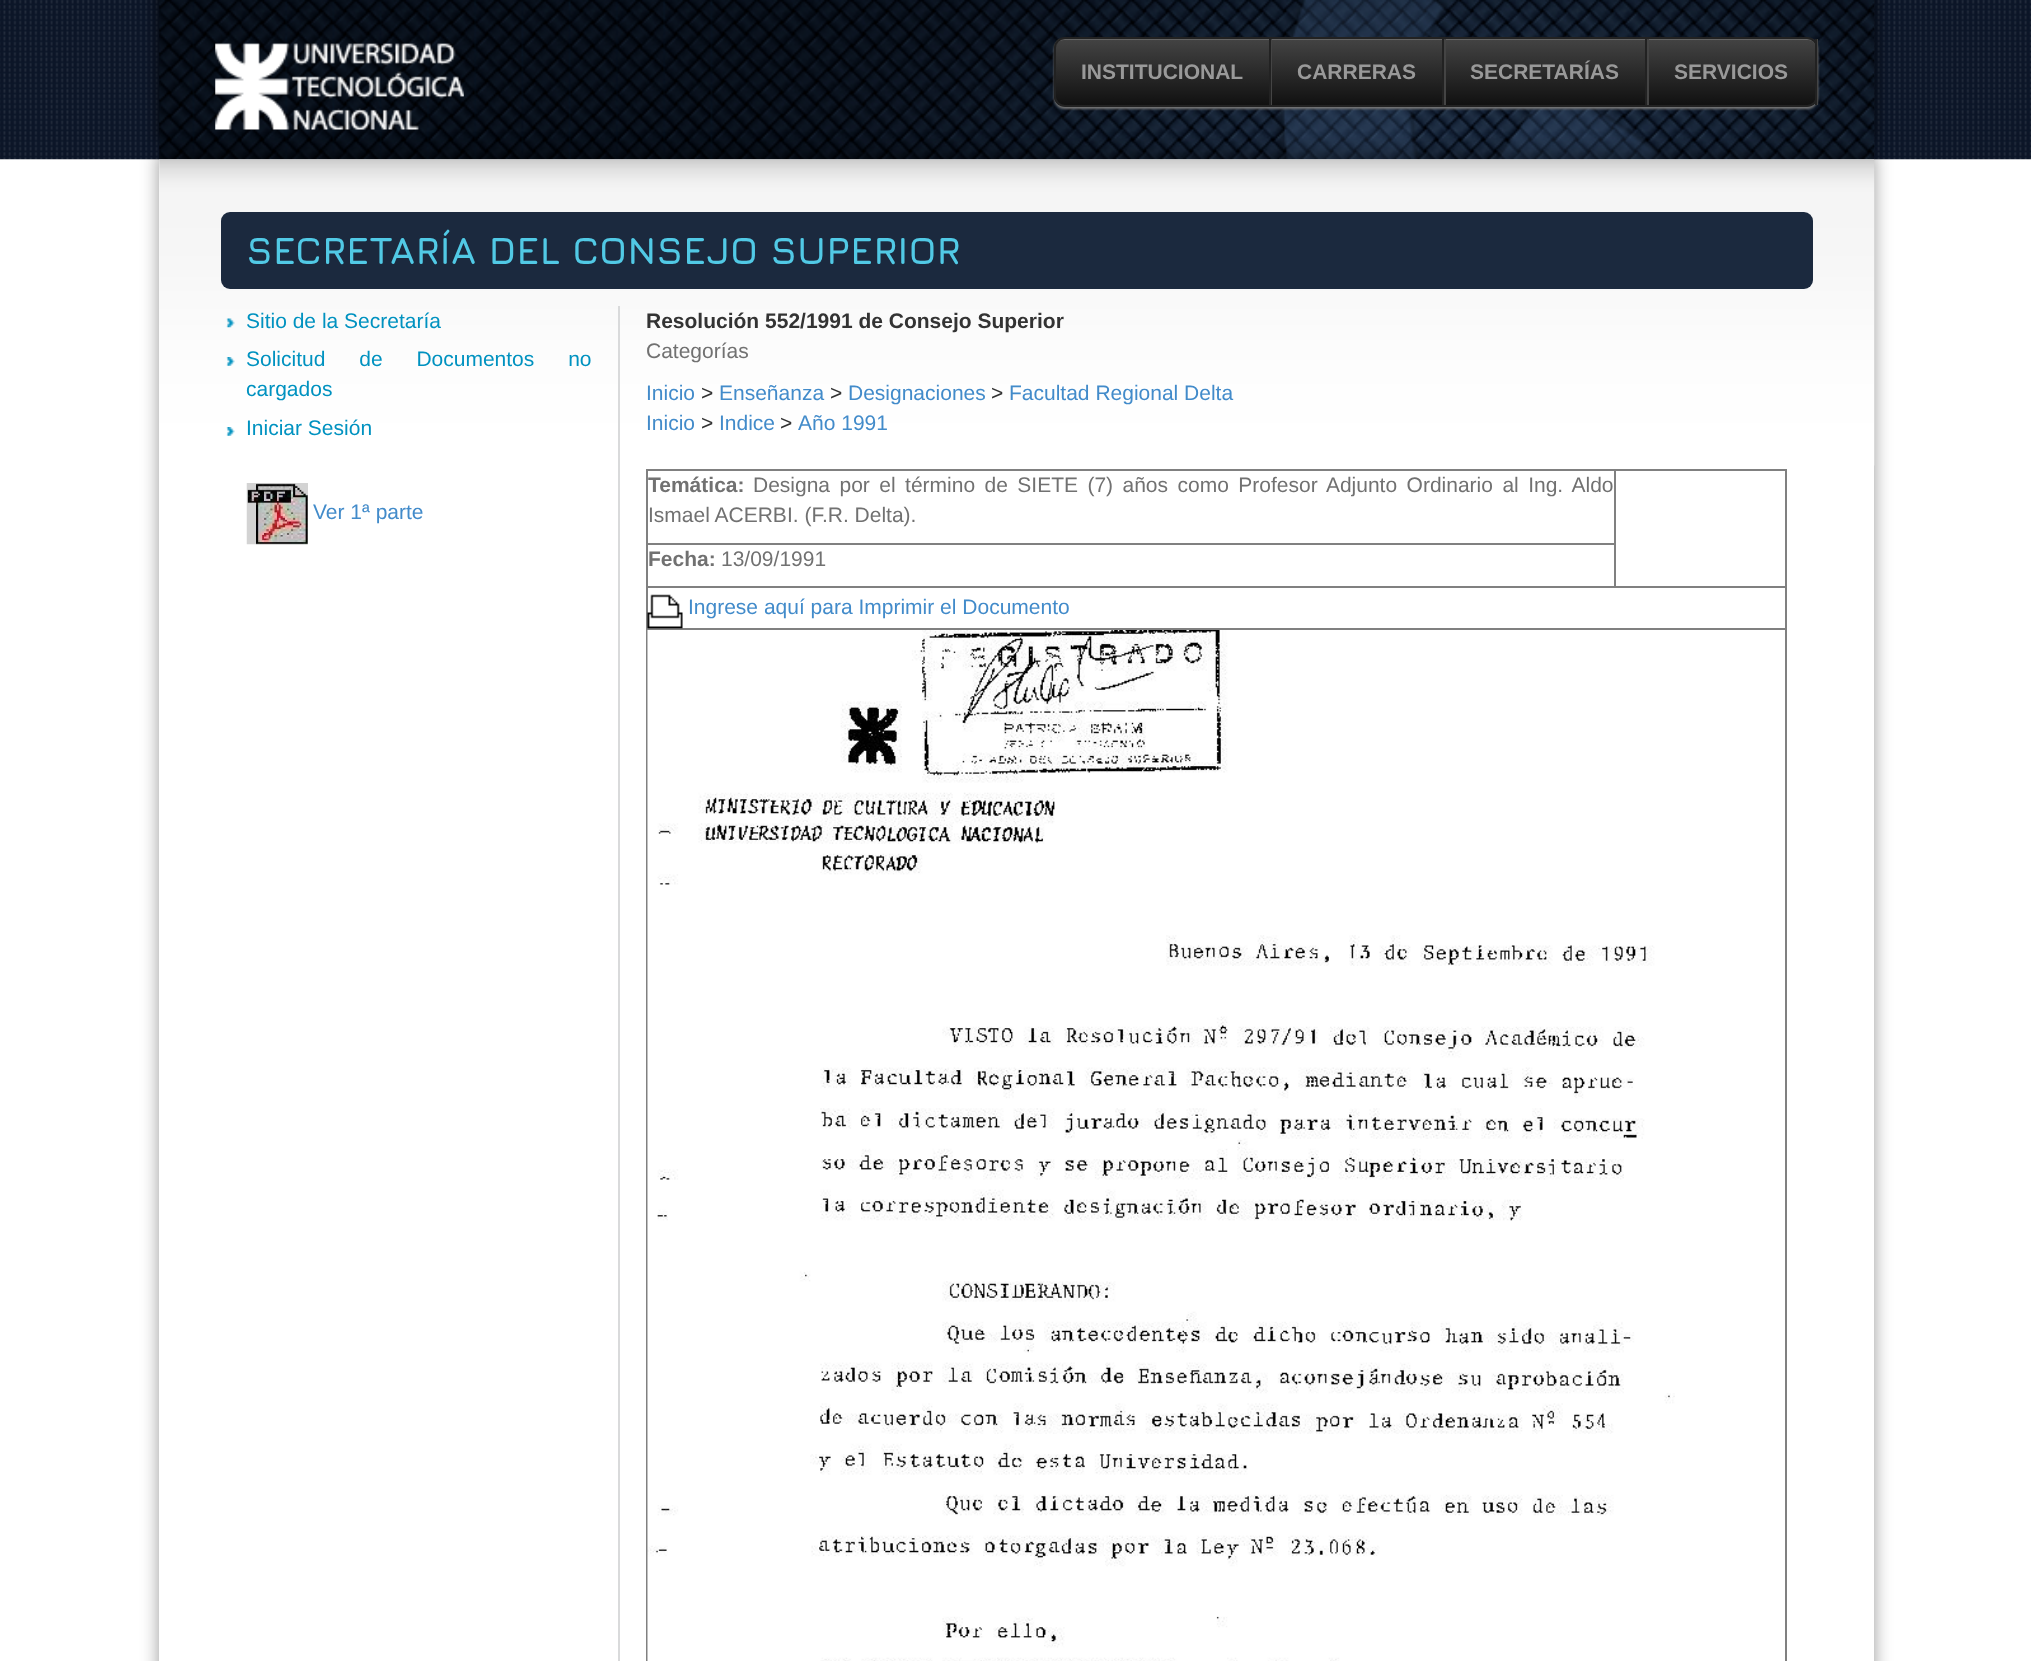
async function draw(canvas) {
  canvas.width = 2031
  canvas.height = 1661
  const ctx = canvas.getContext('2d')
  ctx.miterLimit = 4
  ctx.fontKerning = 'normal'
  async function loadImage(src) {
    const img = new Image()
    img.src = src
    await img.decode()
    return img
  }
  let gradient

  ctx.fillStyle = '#fff'
  ctx.fillRect(0, 0, 2031, 1661)
  ctx.drawImage(await loadImage('image0.png'), 0, 0, 2031, 160)
  ctx.fillStyle = '#000000b3'
  ctx.filter = 'blur(8px)'
  ctx.beginPath()
  ctx.rect(159, -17, 1715, 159)
  ctx.fill()
  ctx.filter = 'none'
  ctx.drawImage(await loadImage('image1.png'), 159, 0, 1716, 160)
  ctx.save()
  ctx.beginPath()
  ctx.moveTo(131, 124)
  ctx.lineTo(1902, 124)
  ctx.lineTo(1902, 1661)
  ctx.lineTo(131, 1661)
  ctx.closePath()
  ctx.moveTo(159, 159)
  ctx.lineTo(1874, 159)
  ctx.lineTo(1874, 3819)
  ctx.lineTo(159, 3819)
  ctx.closePath()
  ctx.clip('evenodd')
  ctx.fillStyle = '#00000066'
  ctx.filter = 'blur(9px)'
  ctx.beginPath()
  ctx.rect(159, 152, 1715, 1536)
  ctx.fill()
  ctx.filter = 'none'
  ctx.restore()
  ctx.drawImage(await loadImage('image2.png'), 215, 43, 249, 87)
  ctx.fillStyle = '#777'
  ctx.filter = 'blur(1px)'
  ctx.beginPath()
  ctx.roundRect(1054, 39, 764, 70, 11)
  ctx.fill()
  ctx.filter = 'none'
  ctx.save()
  ctx.beginPath()
  ctx.roundRect(1054, 37, 764, 70, 11)
  ctx.clip()
  gradient = ctx.createLinearGradient(1436, 38, 1436, 105)
  gradient.addColorStop(0, '#444')
  gradient.addColorStop(1, '#111')
  ctx.fillStyle = gradient
  ctx.fillRect(1054, 39, 761, 66)
  ctx.restore()
  ctx.fillStyle = '#666'
  ctx.beginPath()
  ctx.moveTo(1064, 40)
  ctx.lineTo(1808, 40)
  ctx.bezierCurveTo(1813, 40, 1816, 44, 1816, 49)
  ctx.lineTo(1816, 101)
  ctx.bezierCurveTo(1817, 99, 1817, 98, 1817, 96)
  ctx.lineTo(1817, 48)
  ctx.bezierCurveTo(1817, 43, 1813, 39, 1808, 39)
  ctx.lineTo(1064, 39)
  ctx.bezierCurveTo(1059, 39, 1055, 43, 1055, 48)
  ctx.lineTo(1055, 49)
  ctx.bezierCurveTo(1055, 44, 1059, 40, 1064, 40)
  ctx.closePath()
  ctx.fill()
  ctx.beginPath()
  ctx.roundRect(1055, 38, 762, 68, 10)
  ctx.strokeStyle = '#222'
  ctx.lineWidth = 2
  ctx.stroke()
  ctx.fillStyle = '#444'
  ctx.fillRect(1271, 39, 1, 66)
  ctx.fillStyle = '#222'
  ctx.fillRect(1269, 39, 2, 66)
  ctx.font = 'bold 21px Liberation Sans'
  ctx.fillStyle = '#999'
  ctx.fillText('INSTITUCIONAL', 1081, 79)
  ctx.fillStyle = '#444'
  ctx.fillRect(1444, 39, 2, 66)
  ctx.fillStyle = '#222'
  ctx.fillRect(1442, 39, 2, 66)
  ctx.fillStyle = '#999'
  ctx.fillText('CARRERAS', 1297, 79)
  ctx.fillStyle = '#444'
  ctx.fillRect(1647, 39, 2, 66)
  ctx.fillStyle = '#222'
  ctx.fillRect(1645, 39, 2, 66)
  ctx.fillStyle = '#999'
  ctx.fillText('SECRETARÍAS', 1470, 79)
  ctx.fillStyle = '#444'
  ctx.fillRect(1817, 39, 1, 66)
  ctx.fillStyle = '#222'
  ctx.fillRect(1815, 39, 2, 66)
  ctx.fillStyle = '#999'
  ctx.fillText('SERVICIOS', 1674, 79)
  ctx.drawImage(await loadImage('image3.png'), 159, 159, 1716, 307)
  ctx.fillStyle = '#1b293e'
  ctx.beginPath()
  ctx.roundRect(221, 212, 1592, 77, 9)
  ctx.fill()
  ctx.font = 'bold 38.5px Jura'
  ctx.fillStyle = '#51c9e5'
  ctx.fillText('SECRETARÍA DEL CONSEJO SUPERIOR', 246, 264)
  ctx.drawImage(await loadImage('image4.png'), 226, 318, 9, 10)
  ctx.font = '21px Liberation Sans'
  ctx.fillStyle = '#0092c0'
  ctx.fillText('Sitio de la Secretaría', 246, 328)
  ctx.drawImage(await loadImage('image5.png'), 226, 357, 9, 9)
  ctx.wordSpacing = '28px'
  ctx.fillText('Solicitud de Documentos no', 246, 366)
  ctx.wordSpacing = '0px'
  ctx.fillText('cargados', 246, 396)
  ctx.drawImage(await loadImage('image6.png'), 226, 427, 9, 9)
  ctx.fillText('Iniciar Sesión', 246, 435)
  ctx.drawImage(await loadImage('image7.png'), 246, 483, 62, 62)
  ctx.fillStyle = '#428bca'
  ctx.fillText('Ver 1ª parte', 313, 519)
  ctx.fillStyle = '#d9dadb'
  ctx.fillRect(618, 306, 2, 1355)
  ctx.font = 'bold 21px Liberation Sans'
  ctx.fillStyle = '#333'
  ctx.fillText('Resolución 552/1991 de Consejo Superior', 646, 328)
  ctx.font = '21px Liberation Sans'
  ctx.fillStyle = '#717171'
  ctx.fillText('Categorías', 646, 358)
  ctx.fillStyle = '#428bca'
  ctx.fillText('Inicio', 646, 400)
  ctx.fillStyle = '#333'
  ctx.fillText('>', 701, 400)
  ctx.fillStyle = '#428bca'
  ctx.fillText('Enseñanza', 719, 400)
  ctx.fillStyle = '#333'
  ctx.fillText('>', 830, 400)
  ctx.fillStyle = '#428bca'
  ctx.fillText('Designaciones', 848, 400)
  ctx.fillStyle = '#333'
  ctx.fillText('>', 991, 400)
  ctx.fillStyle = '#428bca'
  ctx.fillText('Facultad Regional Delta', 1009, 400)
  ctx.fillText('Inicio', 646, 430)
  ctx.fillStyle = '#333'
  ctx.fillText('>', 701, 430)
  ctx.fillStyle = '#428bca'
  ctx.fillText('Indice', 719, 430)
  ctx.fillStyle = '#333'
  ctx.fillText('>', 780, 430)
  ctx.fillStyle = '#428bca'
  ctx.fillText('Año 1991', 798, 430)
  ctx.fillStyle = '#808080'
  ctx.fillRect(646, 469, 1141, 2)
  ctx.fillRect(1785, 469, 2, 1192)
  ctx.fillRect(646, 469, 2, 1192)
  ctx.font = 'bold 21px Liberation Sans'
  ctx.fillStyle = '#717171'
  ctx.fillText('Temática:', 648, 492)
  ctx.wordSpacing = '3.6px'
  ctx.font = '21px Liberation Sans'
  ctx.fillText('Designa por el término de SIETE (7) años como Profesor Adjunto Ordinario al Ing. Aldo', 753, 492)
  ctx.wordSpacing = '0px'
  ctx.fillText('Ismael ACERBI. (F.R. Delta).', 648, 522)
  ctx.fillStyle = '#808080'
  ctx.fillRect(646, 543, 969, 2)
  ctx.fillRect(646, 586, 1141, 2)
  ctx.fillRect(1614, 469, 2, 119)
  ctx.font = 'bold 21px Liberation Sans'
  ctx.fillStyle = '#717171'
  ctx.fillText('Fecha:', 648, 566)
  ctx.font = '21px Liberation Sans'
  ctx.fillText('13/09/1991', 721, 566)
  ctx.fillStyle = '#808080'
  ctx.fillRect(646, 628, 1141, 2)
  ctx.drawImage(await loadImage('image8.png'), 647, 594, 36, 35)
  ctx.fillStyle = '#428bca'
  ctx.fillText('Ingrese aquí para Imprimir el Documento', 688, 614)
  ctx.drawImage(await loadImage('image9.png'), 647, 630, 1028, 1031)
}

draw(document.querySelector('canvas'))
